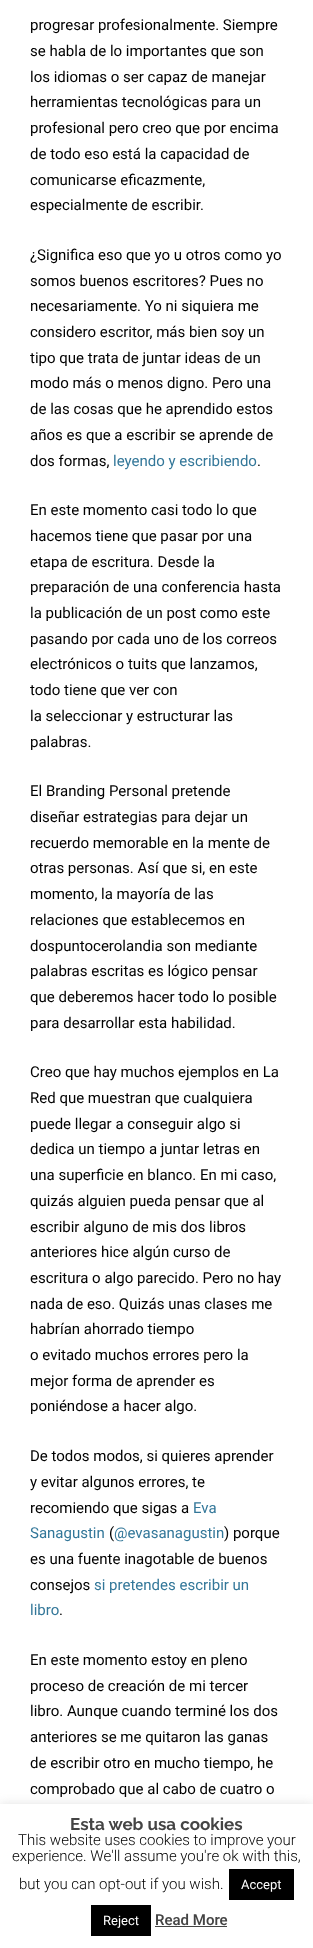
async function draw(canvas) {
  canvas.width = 313
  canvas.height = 1948
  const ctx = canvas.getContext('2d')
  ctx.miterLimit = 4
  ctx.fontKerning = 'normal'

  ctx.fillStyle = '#fff'
  ctx.fillRect(0, 0, 313, 1948)
  ctx.font = '15px Roboto'
  ctx.fillStyle = '#000'
  ctx.fillText('progresar profesionalmente. Siempre', 30, 30)
  ctx.fillText('se habla de lo importantes que son', 30, 56)
  ctx.fillText('los idiomas o ser capaz de manejar', 30, 82)
  ctx.fillText('herramientas tecnológicas para un', 30, 107)
  ctx.fillText('profesional pero creo que por encima', 30, 133)
  ctx.fillText('de todo eso está la capacidad de', 30, 159)
  ctx.fillText('comunicarse eficazmente,', 30, 185)
  ctx.fillText('especialmente de escribir.', 30, 210)
  ctx.fillText('¿Significa eso que yo u otros como yo', 30, 260)
  ctx.fillText('somos buenos escritores? Pues no', 30, 286)
  ctx.fillText('necesariamente. Yo ni siquiera me', 30, 311)
  ctx.fillText('considero escritor, más bien soy un', 30, 337)
  ctx.fillText('tipo que trata de juntar ideas de un', 30, 363)
  ctx.fillText('modo más o menos digno. Pero una', 30, 388)
  ctx.fillText('de las cosas que he aprendido estos', 30, 414)
  ctx.fillText('años es que a escribir se aprende de', 30, 440)
  ctx.fillText('dos formas,', 30, 466)
  ctx.fillStyle = '#379'
  ctx.fillText('leyendo y escribiendo', 113, 466)
  ctx.fillStyle = '#000'
  ctx.fillText('.', 257, 466)
  ctx.fillText('En este momento casi todo lo que', 30, 515)
  ctx.fillText('hacemos tiene que pasar por una', 30, 541)
  ctx.fillText('etapa de escritura. Desde la', 30, 567)
  ctx.fillText('preparación de una conferencia hasta', 30, 592)
  ctx.fillText('la publicación de un post como este', 30, 618)
  ctx.fillText('pasando por cada uno de los correos', 30, 644)
  ctx.fillText('electrónicos o tuits que lanzamos,', 30, 669)
  ctx.fillText('todo tiene que ver con', 30, 695)
  ctx.fillText('la seleccionar y estructurar las', 30, 721)
  ctx.fillText('palabras.', 30, 747)
  ctx.fillText('El Branding Personal pretende', 30, 796)
  ctx.fillText('diseñar estrategias para dejar un', 30, 822)
  ctx.fillText('recuerdo memorable en la mente de', 30, 848)
  ctx.fillText('otras personas. Así que si, en este', 30, 873)
  ctx.fillText('momento, la mayoría de las', 30, 899)
  ctx.fillText('relaciones que establecemos en', 30, 925)
  ctx.fillText('dospuntocerolandia son mediante', 30, 951)
  ctx.fillText('palabras escritas es lógico pensar', 30, 976)
  ctx.fillText('que deberemos hacer todo lo posible', 30, 1002)
  ctx.fillText('para desarrollar esta habilidad.', 30, 1028)
  ctx.fillText('Creo que hay muchos ejemplos en La', 30, 1077)
  ctx.fillText('Red que muestran que cualquiera', 30, 1103)
  ctx.fillText('puede llegar a conseguir algo si', 30, 1129)
  ctx.fillText('dedica un tiempo a juntar letras en', 30, 1154)
  ctx.fillText('una superficie en blanco. En mi caso,', 30, 1180)
  ctx.fillText('quizás alguien pueda pensar que al', 30, 1206)
  ctx.fillText('escribir alguno de mis dos libros', 30, 1232)
  ctx.fillText('anteriores hice algún curso de', 30, 1257)
  ctx.fillText('escritura o algo parecido. Pero no hay', 30, 1283)
  ctx.fillText('nada de eso. Quizás unas clases me', 30, 1309)
  ctx.fillText('habrían ahorrado tiempo', 30, 1334)
  ctx.fillText('o evitado muchos errores pero la', 30, 1360)
  ctx.fillText('mejor forma de aprender es', 30, 1386)
  ctx.fillText('poniéndose a hacer algo.', 30, 1411)
  ctx.fillText('De todos modos, si quieres aprender', 30, 1461)
  ctx.fillText('y evitar algunos errores, te', 30, 1487)
  ctx.fillText('recomiendo que sigas a', 30, 1513)
  ctx.fillStyle = '#379'
  ctx.fillText('Eva', 193, 1513)
  ctx.fillText('Sanagustin', 30, 1538)
  ctx.fillStyle = '#000'
  ctx.fillText('(', 109, 1538)
  ctx.fillStyle = '#379'
  ctx.fillText('@evasanagustin', 114, 1538)
  ctx.fillStyle = '#000'
  ctx.fillText(') porque', 224, 1538)
  ctx.fillText('es una fuente inagotable de buenos', 30, 1564)
  ctx.fillText('consejos', 30, 1590)
  ctx.fillStyle = '#379'
  ctx.fillText('si pretendes escribir un', 94, 1590)
  ctx.fillText('libro', 30, 1615)
  ctx.fillStyle = '#000'
  ctx.fillText('.', 59, 1615)
  ctx.fillText('En este momento estoy en pleno', 30, 1665)
  ctx.fillText('proceso de creación de mi tercer', 30, 1691)
  ctx.fillText('libro. Aunque cuando terminé los dos', 30, 1716)
  ctx.fillText('anteriores se me quitaron las ganas', 30, 1742)
  ctx.fillText('de escribir otro en mucho tiempo, he', 30, 1768)
  ctx.fillText('comprobado que al cabo de cuatro o', 30, 1794)
  ctx.fillStyle = '#acabab4d'
  ctx.filter = 'blur(5px)'
  ctx.beginPath()
  ctx.rect(0, 1803, 313, 144)
  ctx.fill()
  ctx.filter = 'none'
  ctx.fillStyle = '#fff'
  ctx.fillRect(0, 1804, 313, 144)
  ctx.font = 'bold 17px Raleway'
  ctx.fillStyle = '#444'
  ctx.fillText('Esta web usa cookies', 70, 1830)
  ctx.font = '300 15px Roboto'
  ctx.fillStyle = '#000'
  ctx.fillText('This website uses cookies to improve your', 18, 1845)
  ctx.fillText('experience. We\'ll assume you\'re ok with this,', 12, 1861)
  ctx.fillText('but you can opt-out if you wish.', 19, 1889)
  ctx.fillRect(229, 1869, 65, 31)
  ctx.font = '13px Roboto'
  ctx.fillStyle = '#fff'
  ctx.fillText('Accept', 241, 1889)
  ctx.fillStyle = '#000'
  ctx.fillRect(91, 1905, 60, 31)
  ctx.fillStyle = '#fff'
  ctx.fillText('Reject', 103, 1925)
  ctx.font = '500 15px Roboto'
  ctx.fillStyle = '#444'
  ctx.fillText('Read More', 155, 1925)
  ctx.fillRect(155, 1926, 72, 1)
}

draw(document.querySelector('canvas'))
